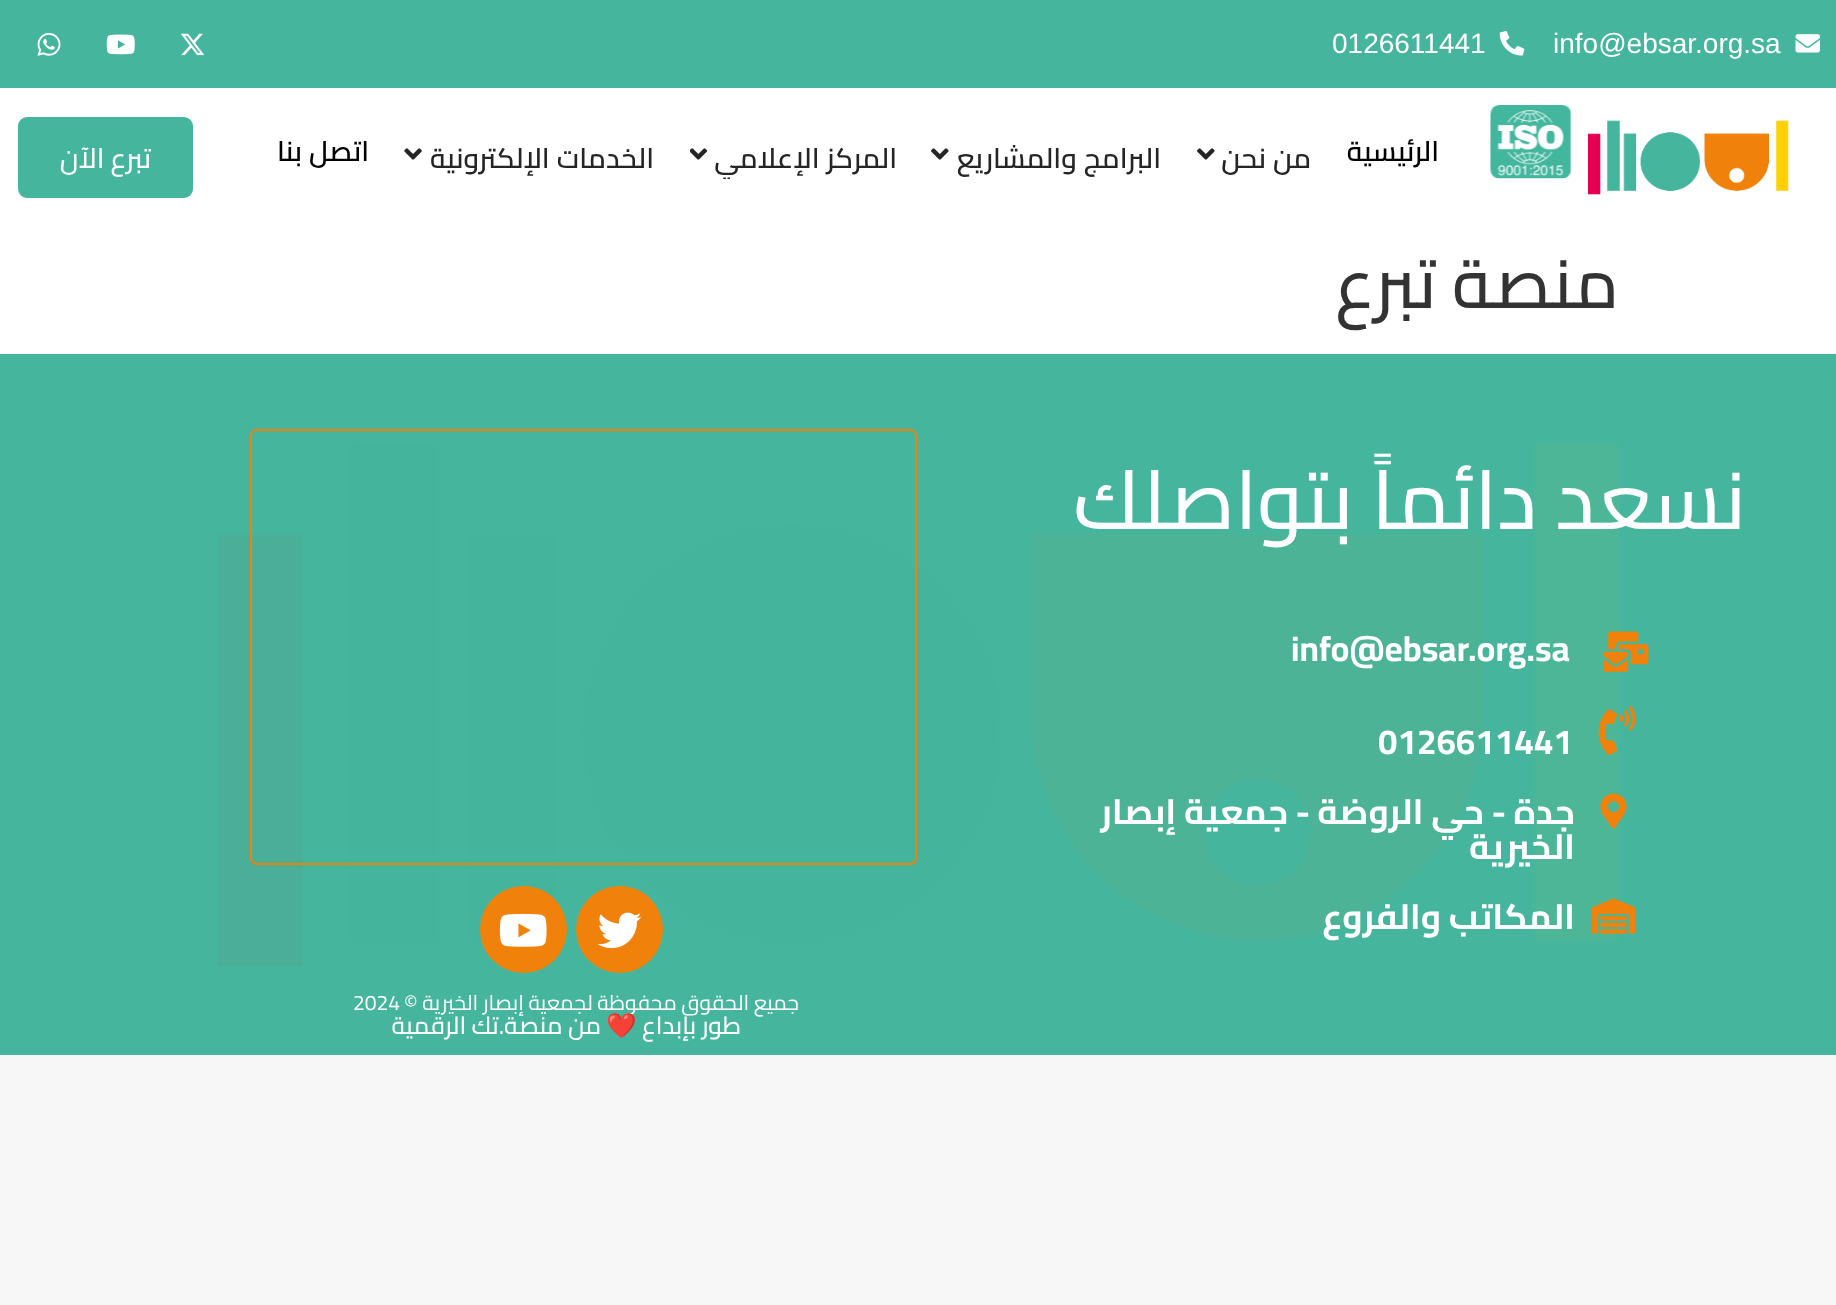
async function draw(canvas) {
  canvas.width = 1836
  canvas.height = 1305
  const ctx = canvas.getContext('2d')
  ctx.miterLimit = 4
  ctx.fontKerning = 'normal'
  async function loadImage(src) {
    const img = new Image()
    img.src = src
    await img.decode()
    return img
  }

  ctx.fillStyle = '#f7f7f7'
  ctx.fillRect(0, 0, 1836, 1305)
  ctx.fillStyle = '#fff'
  ctx.fillRect(0, 88, 1836, 266)
  ctx.fillStyle = '#45b69d'
  ctx.fillRect(0, 0, 1836, 88)
  ctx.drawImage(await loadImage('image0.png'), 1795, 34, 25, 19)
  ctx.font = '28px Liberation Sans'
  ctx.fillStyle = '#fff'
  ctx.fillText('info@ebsar.org.sa', 1553, 53)
  ctx.drawImage(await loadImage('image1.png'), 1499, 31, 26, 25)
  ctx.fillText('0126611441', 1332, 53)
  ctx.drawImage(await loadImage('image2.png'), 180, 33, 25, 23)
  ctx.drawImage(await loadImage('image3.png'), 106, 34, 29, 21)
  ctx.drawImage(await loadImage('image4.png'), 37, 32, 24, 24)
  ctx.drawImage(await loadImage('image5.png'), 1588, 120, 201, 75)
  ctx.drawImage(await loadImage('image6.png'), 1490, 105, 82, 74)
  ctx.direction = 'rtl'
  ctx.font = '600 28px Cairo'
  ctx.fillStyle = '#000'
  ctx.fillText('الرئيسية', 1439, 161)
  ctx.fillStyle = '#252525'
  ctx.fillText('من نحن', 1311, 168)
  ctx.drawImage(await loadImage('image7.png'), 1197, 148, 18, 12)
  ctx.fillText('البرامج والمشاريع', 1161, 168)
  ctx.drawImage(await loadImage('image7.png'), 931, 148, 18, 12)
  ctx.save()
  ctx.beginPath()
  ctx.roundRect(690, 137, 206, 42, 5)
  ctx.clip()
  ctx.fillText('المركز الإعلامي', 897, 168)
  ctx.restore()
  ctx.drawImage(await loadImage('image8.png'), 690, 148, 17, 12)
  ctx.fillText('الخدمات الإلكترونية', 654, 168)
  ctx.drawImage(await loadImage('image9.png'), 404, 148, 18, 12)
  ctx.fillStyle = '#000'
  ctx.fillText('اتصل بنا', 369, 161)
  ctx.fillStyle = '#45b69d'
  ctx.beginPath()
  ctx.roundRect(18, 117, 175, 81, 9)
  ctx.fill()
  ctx.font = '500 28px Cairo'
  ctx.fillStyle = '#fff'
  ctx.fillText('تبرع الآن', 151, 168)
  ctx.font = '500 70px Cairo'
  ctx.fillStyle = '#333'
  ctx.fillText('منصة تبرع', 1619, 308)
  ctx.fillStyle = '#45b69d'
  ctx.fillRect(0, 354, 1836, 701)
  ctx.drawImage(await loadImage('image10.png'), 217, 443, 1402, 523)
  ctx.font = '500 82.25px Cairo'
  ctx.fillStyle = '#fff'
  ctx.fillText('نسعد دائماً بتواصلك', 1746, 529)
  ctx.drawImage(await loadImage('image11.png'), 1603, 631, 46, 41)
  ctx.direction = 'ltr'
  ctx.font = 'bold 35px Cairo'
  ctx.fillText('info@ebsar.org.sa', 1291, 661)
  ctx.drawImage(await loadImage('image12.png'), 1598, 706, 38, 50)
  ctx.fillText('0126611441', 1378, 754)
  ctx.drawImage(await loadImage('image13.png'), 1600, 793, 27, 36)
  ctx.direction = 'rtl'
  ctx.fillText('جدة - حي الروضة', 1575, 824)
  ctx.fillText('- جمعية إبصار', 1310, 824)
  ctx.fillText('الخيرية', 1575, 859)
  ctx.drawImage(await loadImage('image14.png'), 1591, 898, 45, 36)
  ctx.fillText('المكاتب والفروع', 1575, 929)
  ctx.beginPath()
  ctx.roundRect(251, 430, 665, 434, 6)
  ctx.strokeStyle = '#f0810a'
  ctx.lineWidth = 2
  ctx.stroke()
  ctx.fillStyle = '#f0810a'
  ctx.beginPath()
  ctx.arc(619.5, 929.5, 43.5, 0, 2 * Math.PI)
  ctx.fill()
  ctx.drawImage(await loadImage('image15.png'), 597, 912, 45, 37)
  ctx.beginPath()
  ctx.arc(523.5, 929.5, 43.5, 0, 2 * Math.PI)
  ctx.fill()
  ctx.drawImage(await loadImage('image16.png'), 499, 913, 48, 34)
  ctx.font = '21px Cairo'
  ctx.fillStyle = '#fff'
  ctx.fillText('جميع الحقوق محفوظة لجمعية إبصار الخيرية ©', 799, 1010)
  ctx.direction = 'ltr'
  ctx.fillText('2024', 353, 1010)
  ctx.direction = 'rtl'
  ctx.font = '500 24.5px Cairo'
  ctx.fillText('طور بإبداع', 741, 1034)
  ctx.font = '24.5px Noto Color Emoji'
  ctx.fillText('❤️', 637, 1034)
  ctx.font = '500 24.5px Cairo'
  ctx.fillText('من منصة.تك الرقمية', 601, 1034)
}

draw(document.querySelector('canvas'))
